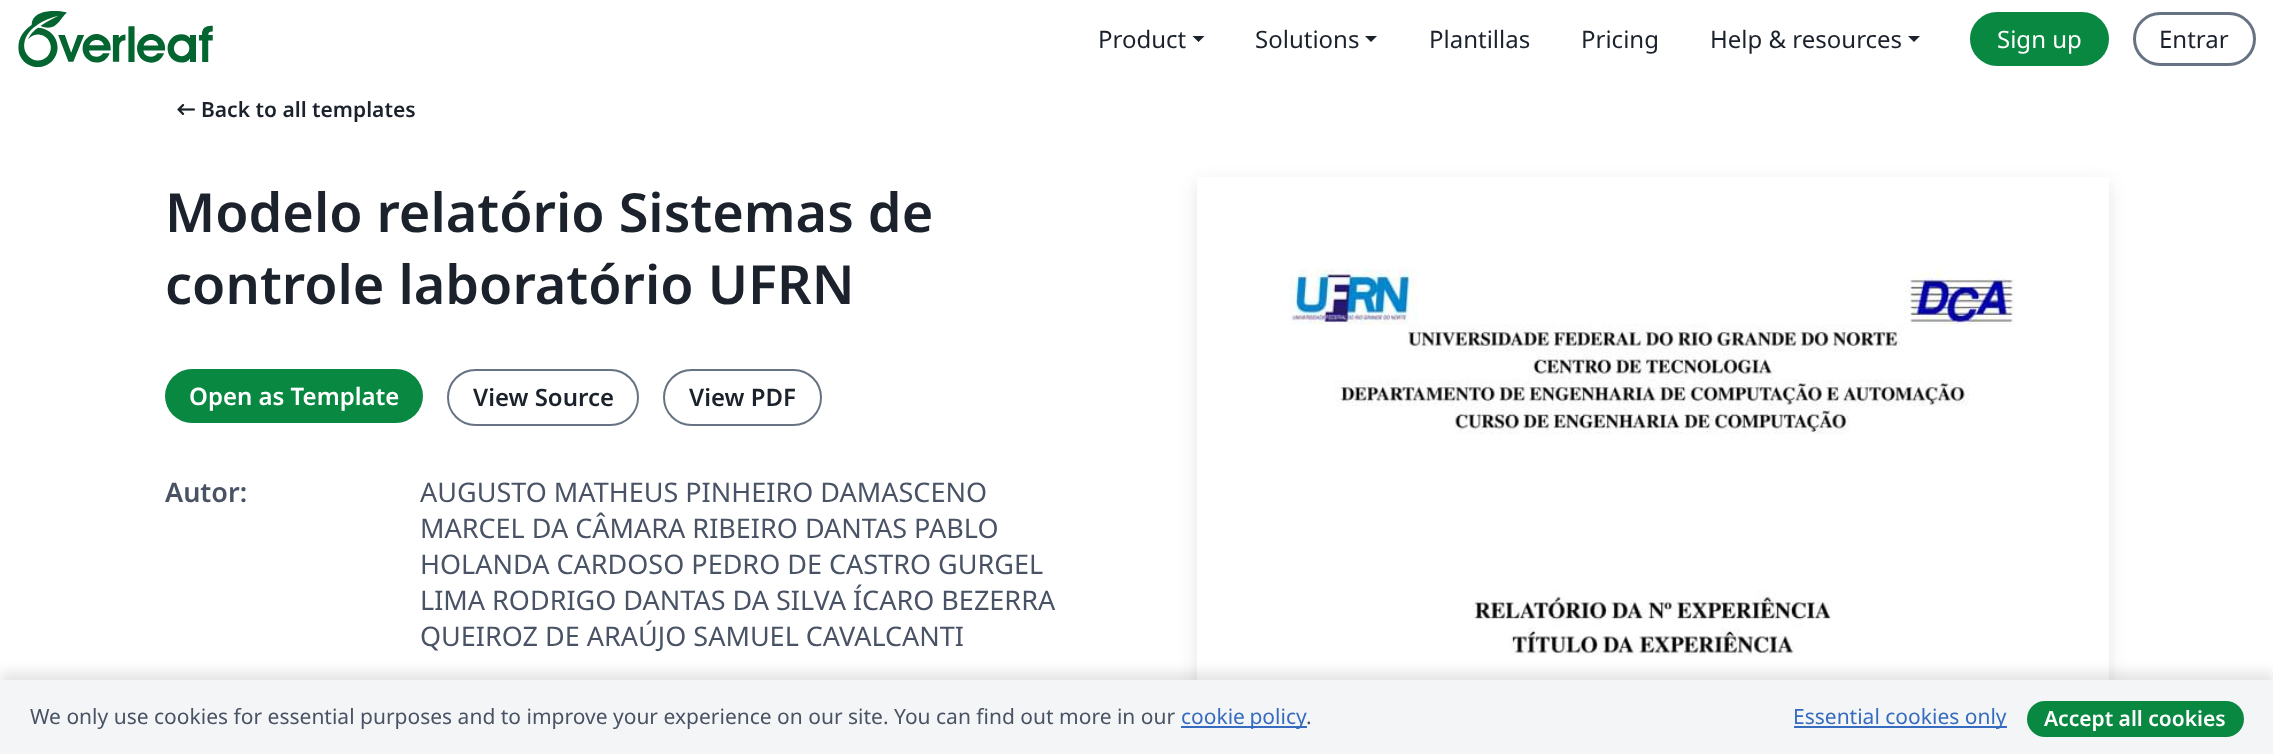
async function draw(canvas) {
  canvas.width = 2273
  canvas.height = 754
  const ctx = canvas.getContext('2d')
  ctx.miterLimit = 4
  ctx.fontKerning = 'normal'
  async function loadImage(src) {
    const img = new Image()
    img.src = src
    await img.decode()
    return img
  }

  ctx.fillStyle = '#fff'
  ctx.fillRect(0, 0, 2273, 754)
  ctx.drawImage(await loadImage('image0.png'), 18, 11, 195, 56)
  ctx.font = '24px Noto Sans'
  ctx.fillStyle = '#1b222c'
  ctx.fillText('Product', 1098, 48)
  ctx.beginPath()
  ctx.moveTo(1192.5, 36)
  ctx.lineTo(1204.5, 36)
  ctx.lineTo(1198.5, 42)
  ctx.closePath()
  ctx.fill()
  ctx.fillText('Solutions', 1255, 48)
  ctx.beginPath()
  ctx.moveTo(1365, 36)
  ctx.lineTo(1377, 36)
  ctx.lineTo(1371, 42)
  ctx.closePath()
  ctx.fill()
  ctx.fillText('Plantillas', 1429, 48)
  ctx.fillText('Pricing', 1581, 48)
  ctx.fillText('Help & resources', 1710, 48)
  ctx.beginPath()
  ctx.moveTo(1908, 36)
  ctx.lineTo(1920, 36)
  ctx.lineTo(1914, 42)
  ctx.closePath()
  ctx.fill()
  ctx.fillStyle = '#098842'
  ctx.beginPath()
  ctx.roundRect(1971.5, 13.5, 136, 51, 25.5)
  ctx.fill()
  ctx.strokeStyle = '#098842'
  ctx.lineWidth = 3
  ctx.stroke()
  ctx.fillStyle = '#fff'
  ctx.fillText('Sign up', 1997, 48)
  ctx.beginPath()
  ctx.roundRect(2134.5, 13.5, 120, 51, 25.5)
  ctx.strokeStyle = '#677283'
  ctx.stroke()
  ctx.fillStyle = '#1b222c'
  ctx.fillText('Entrar', 2159, 48)
  ctx.drawImage(await loadImage('image1.png'), 177, 104, 18, 11)
  ctx.font = '600 21px Noto Sans'
  ctx.fillText('Back to all templates', 201, 117)
  ctx.font = '600 54px Noto Sans'
  ctx.fillText('Modelo relatório Sistemas de', 165, 232)
  ctx.fillText('controle laboratório UFRN', 165, 304)
  ctx.fillStyle = '#098842'
  ctx.beginPath()
  ctx.roundRect(165, 369, 258, 54, 27)
  ctx.fill()
  ctx.font = '600 24px Noto Sans'
  ctx.fillStyle = '#fff'
  ctx.fillText('Open as Template', 189, 405)
  ctx.beginPath()
  ctx.roundRect(448, 370, 190, 55, 27.5)
  ctx.lineWidth = 2
  ctx.stroke()
  ctx.fillStyle = '#1b222c'
  ctx.fillText('View Source', 473, 406)
  ctx.beginPath()
  ctx.roundRect(664, 370, 157, 55, 27.5)
  ctx.stroke()
  ctx.fillText('View PDF', 689, 406)
  ctx.font = '600 27px Noto Sans'
  ctx.fillStyle = '#495365'
  ctx.fillText('Autor:', 165, 502)
  ctx.font = '27px Noto Sans'
  ctx.fillText('AUGUSTO MATHEUS PINHEIRO DAMASCENO', 420, 502)
  ctx.fillText('MARCEL DA CÂMARA RIBEIRO DANTAS PABLO', 420, 538)
  ctx.fillText('HOLANDA CARDOSO PEDRO DE CASTRO GURGEL', 420, 574)
  ctx.fillText('LIMA RODRIGO DANTAS DA SILVA ÍCARO BEZERRA', 420, 610)
  ctx.fillText('QUEIROZ DE ARAÚJO SAMUEL CAVALCANTI', 420, 646)
  ctx.save()
  ctx.beginPath()
  ctx.moveTo(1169, 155)
  ctx.lineTo(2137, 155)
  ctx.lineTo(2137, 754)
  ctx.lineTo(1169, 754)
  ctx.closePath()
  ctx.moveTo(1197, 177)
  ctx.lineTo(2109, 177)
  ctx.lineTo(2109, 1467)
  ctx.lineTo(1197, 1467)
  ctx.closePath()
  ctx.clip('evenodd')
  ctx.fillStyle = '#1e25301f'
  ctx.filter = 'blur(9px)'
  ctx.beginPath()
  ctx.rect(1197, 183, 912, 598)
  ctx.fill()
  ctx.filter = 'none'
  ctx.restore()
  ctx.drawImage(await loadImage('image2.png'), 1288, 268, 727, 412)
  ctx.fillStyle = '#0000001a'
  ctx.filter = 'blur(6px)'
  ctx.beginPath()
  ctx.rect(0, 672, 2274, 75)
  ctx.fill()
  ctx.filter = 'none'
  ctx.fillStyle = '#f4f5f6'
  ctx.fillRect(0, 680, 2273, 74)
  ctx.font = '21px Noto Sans'
  ctx.fillStyle = '#495365'
  ctx.fillText('We only use cookies for essential purposes and to improve your experience on our site. You can find out more in our', 30, 724)
  ctx.fillStyle = '#366cbf'
  ctx.fillRect(1181, 726, 126, 2)
  ctx.wordSpacing = '-1px'
  ctx.fillText('cookie policy', 1181, 724)
  ctx.wordSpacing = '0px'
  ctx.fillStyle = '#495365'
  ctx.fillText('.', 1306, 724)
  ctx.fillStyle = '#366cbf'
  ctx.fillRect(1794, 726, 213, 2)
  ctx.fillText('Essential cookies only', 1793, 724)
  ctx.fillStyle = '#098842'
  ctx.beginPath()
  ctx.roundRect(2027, 701, 217, 36, 18)
  ctx.fill()
  ctx.font = '600 21px Noto Sans'
  ctx.fillStyle = '#fff'
  ctx.fillText('Accept all cookies', 2044, 726)
}

draw(document.querySelector('canvas'))
